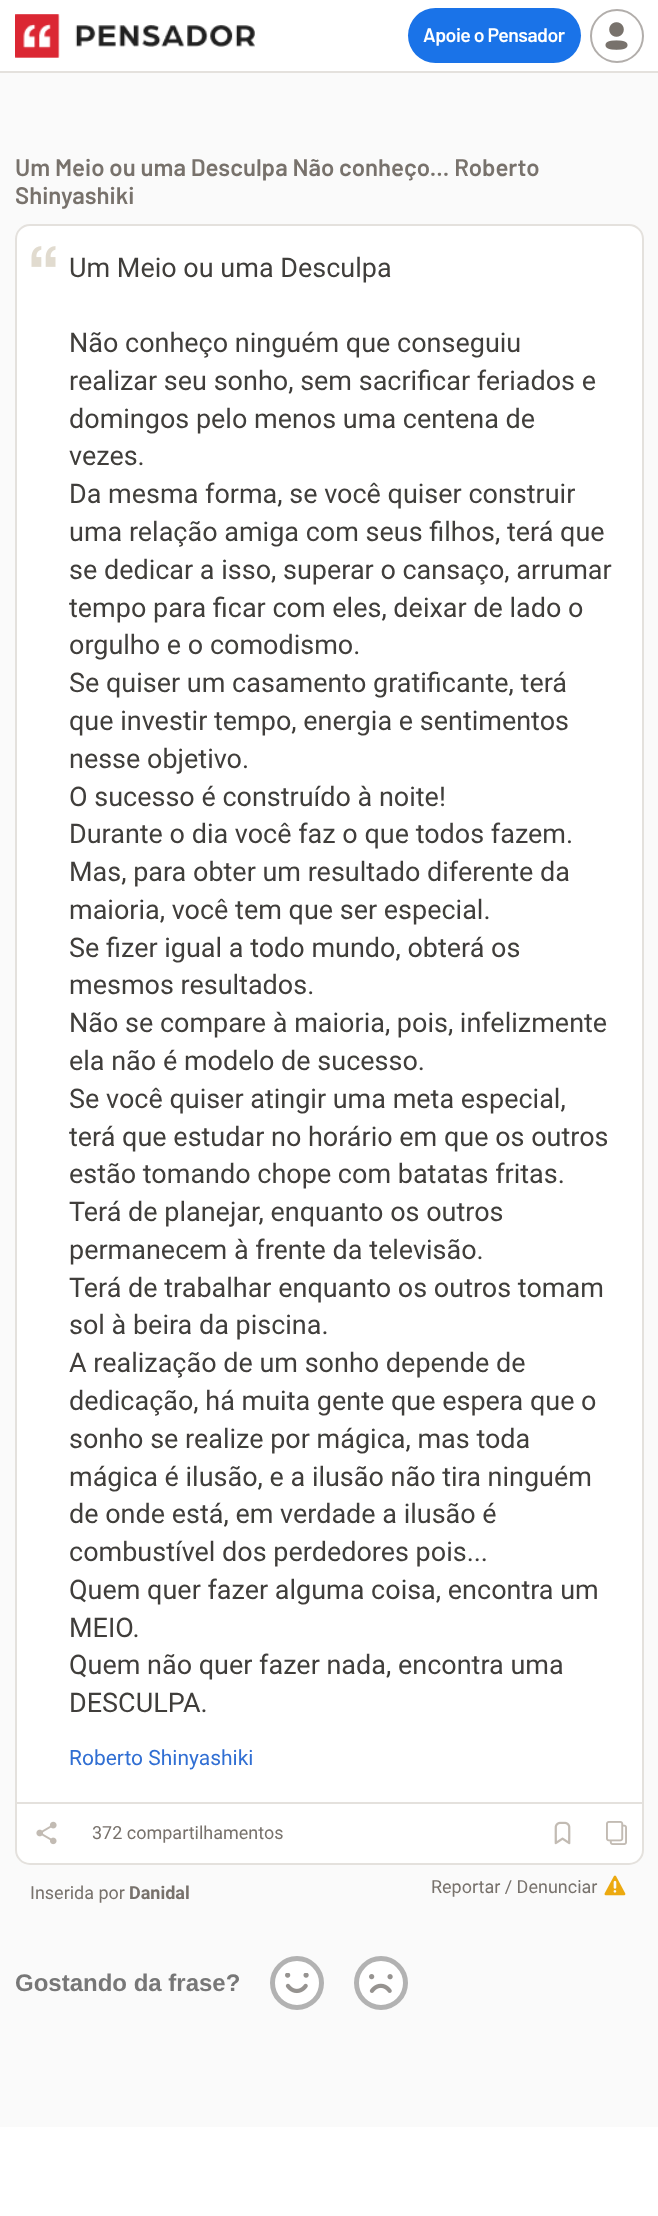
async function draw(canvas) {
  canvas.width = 658
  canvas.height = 2216
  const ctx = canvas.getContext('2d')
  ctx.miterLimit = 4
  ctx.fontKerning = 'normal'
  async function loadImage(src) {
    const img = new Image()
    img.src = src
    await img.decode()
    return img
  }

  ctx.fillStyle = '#fafafa'
  ctx.fillRect(0, 0, 658, 2216)
  ctx.fillStyle = '#fff'
  ctx.fillRect(0, 0, 658, 71)
  ctx.fillStyle = '#e4e1dd'
  ctx.fillRect(0, 71, 658, 2)
  ctx.drawImage(await loadImage('image0.png'), 15, 14, 240, 44)
  ctx.fillStyle = '#1a73e8'
  ctx.beginPath()
  ctx.roundRect(408, 8, 173, 55, 27.5)
  ctx.fill()
  ctx.letterSpacing = '-0.5px'
  ctx.font = '600 19.5px Barlow'
  ctx.fillStyle = '#fff'
  ctx.fillText('Apoie o Pensador', 423, 42)
  ctx.beginPath()
  ctx.arc(617, 36, 26, 0, 2 * Math.PI)
  ctx.strokeStyle = '#b2aeab'
  ctx.lineWidth = 2
  ctx.stroke()
  ctx.drawImage(await loadImage('image1.png'), 605, 22, 23, 28)
  ctx.letterSpacing = '0px'
  ctx.font = '600 24px Barlow'
  ctx.fillStyle = '#78726c'
  ctx.fillText('Um Meio ou uma Desculpa Não conheço... Roberto', 15, 176)
  ctx.fillText('Shinyashiki', 15, 204)
  ctx.fillStyle = '#fff'
  ctx.beginPath()
  ctx.roundRect(16, 225, 627, 1639, 14)
  ctx.fill()
  ctx.strokeStyle = '#e4e1dd'
  ctx.stroke()
  ctx.drawImage(await loadImage('image2.png'), 31, 246, 25, 21)
  ctx.font = '27px Roboto'
  ctx.fillStyle = '#403e3b'
  ctx.fillText('Um Meio ou uma Desculpa', 69, 277)
  ctx.fillText('Não conheço ninguém que conseguiu', 69, 352)
  ctx.fillText('realizar seu sonho, sem sacrificar feriados e', 69, 390)
  ctx.fillText('domingos pelo menos uma centena de', 69, 428)
  ctx.fillText('vezes.', 69, 465)
  ctx.fillText('Da mesma forma, se você quiser construir', 69, 503)
  ctx.fillText('uma relação amiga com seus filhos, terá que', 69, 541)
  ctx.fillText('se dedicar a isso, superar o cansaço, arrumar', 69, 579)
  ctx.fillText('tempo para ficar com eles, deixar de lado o', 69, 617)
  ctx.fillText('orgulho e o comodismo.', 69, 654)
  ctx.fillText('Se quiser um casamento gratificante, terá', 69, 692)
  ctx.fillText('que investir tempo, energia e sentimentos', 69, 730)
  ctx.fillText('nesse objetivo.', 69, 768)
  ctx.fillText('O sucesso é construído à noite!', 69, 806)
  ctx.fillText('Durante o dia você faz o que todos fazem.', 69, 843)
  ctx.fillText('Mas, para obter um resultado diferente da', 69, 881)
  ctx.fillText('maioria, você tem que ser especial.', 69, 919)
  ctx.fillText('Se fizer igual a todo mundo, obterá os', 69, 957)
  ctx.fillText('mesmos resultados.', 69, 994)
  ctx.fillText('Não se compare à maioria, pois, infelizmente', 69, 1032)
  ctx.fillText('ela não é modelo de sucesso.', 69, 1070)
  ctx.fillText('Se você quiser atingir uma meta especial,', 69, 1108)
  ctx.fillText('terá que estudar no horário em que os outros', 69, 1146)
  ctx.fillText('estão tomando chope com batatas fritas.', 69, 1183)
  ctx.fillText('Terá de planejar, enquanto os outros', 69, 1221)
  ctx.fillText('permanecem à frente da televisão.', 69, 1259)
  ctx.fillText('Terá de trabalhar enquanto os outros tomam', 69, 1297)
  ctx.fillText('sol à beira da piscina.', 69, 1334)
  ctx.fillText('A realização de um sonho depende de', 69, 1372)
  ctx.fillText('dedicação, há muita gente que espera que o', 69, 1410)
  ctx.fillText('sonho se realize por mágica, mas toda', 69, 1448)
  ctx.fillText('mágica é ilusão, e a ilusão não tira ninguém', 69, 1486)
  ctx.fillText('de onde está, em verdade a ilusão é', 69, 1523)
  ctx.fillText('combustível dos perdedores pois...', 69, 1561)
  ctx.fillText('Quem quer fazer alguma coisa, encontra um', 69, 1599)
  ctx.fillText('MEIO.', 69, 1637)
  ctx.fillText('Quem não quer fazer nada, encontra uma', 69, 1674)
  ctx.fillText('DESCULPA.', 69, 1712)
  ctx.font = '21px Roboto'
  ctx.fillStyle = '#316fd3'
  ctx.fillText('Roberto Shinyashiki', 69, 1765)
  ctx.fillStyle = '#e4e1dd'
  ctx.fillRect(17, 1802, 625, 2)
  ctx.drawImage(await loadImage('image3.png'), 36, 1821, 21, 24)
  ctx.font = '18px Roboto'
  ctx.fillStyle = '#78726c'
  ctx.fillText('372 compartilhamentos', 92, 1839)
  ctx.drawImage(await loadImage('image4.png'), 554, 1821, 17, 24)
  ctx.drawImage(await loadImage('image5.png'), 606, 1821, 21, 24)
  ctx.fillText('Inserida por', 30, 1899)
  ctx.font = 'bold 18px Roboto'
  ctx.fillText('Danidal', 129, 1899)
  ctx.font = '18px Roboto'
  ctx.fillText('Reportar / Denunciar', 431, 1893)
  ctx.drawImage(await loadImage('image6.png'), 604, 1875, 22, 21)
  ctx.font = 'bold 24px Liberation Sans'
  ctx.fillStyle = '#777'
  ctx.fillText('Gostando da frase?', 15, 1991)
  ctx.fillStyle = '#fff'
  ctx.beginPath()
  ctx.arc(297, 1983, 27, 0, 2 * Math.PI)
  ctx.fill()
  ctx.drawImage(await loadImage('image7.png'), 285, 1973, 24, 21)
  ctx.beginPath()
  ctx.arc(297, 1983, 24.5, 0, 2 * Math.PI)
  ctx.strokeStyle = '#b2b2b2'
  ctx.lineWidth = 5
  ctx.stroke()
  ctx.beginPath()
  ctx.arc(381, 1983, 27, 0, 2 * Math.PI)
  ctx.fill()
  ctx.drawImage(await loadImage('image8.png'), 369, 1974, 24, 19)
  ctx.beginPath()
  ctx.arc(381, 1983, 24.5, 0, 2 * Math.PI)
  ctx.stroke()
  ctx.fillRect(0, 2127, 658, 89)
}

draw(document.querySelector('canvas'))
